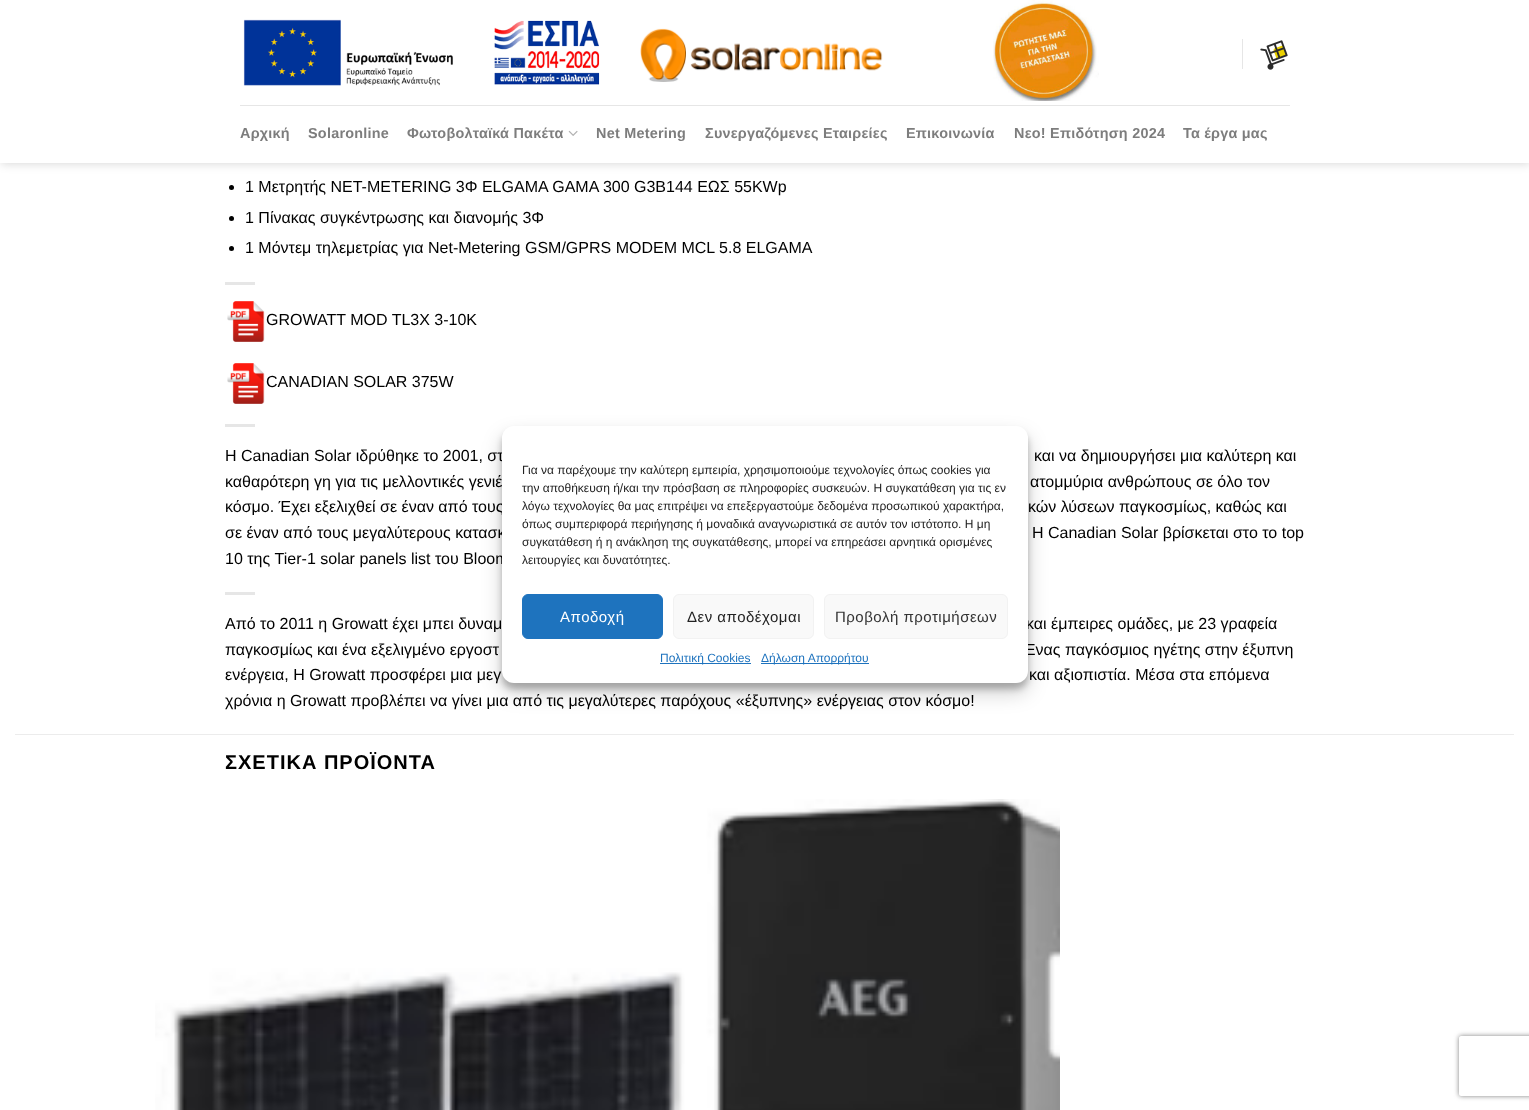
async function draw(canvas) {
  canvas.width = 1529
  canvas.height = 1110
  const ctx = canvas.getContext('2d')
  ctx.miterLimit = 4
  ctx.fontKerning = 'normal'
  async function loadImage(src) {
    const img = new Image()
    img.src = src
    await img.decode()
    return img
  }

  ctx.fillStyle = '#fff'
  ctx.fillRect(0, 0, 1529, 1110)
  ctx.fillStyle = '#00000026'
  ctx.filter = 'blur(5px)'
  ctx.beginPath()
  ctx.rect(1, 1, 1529, 163)
  ctx.fill()
  ctx.filter = 'none'
  ctx.fillStyle = '#fff'
  ctx.fillRect(0, 0, 1529, 163)
  ctx.drawImage(await loadImage('image0.png'), 243, 19, 357, 67)
  ctx.drawImage(await loadImage('image1.png'), 640, 28, 243, 54)
  ctx.drawImage(await loadImage('image2.png'), 993, 0, 106, 101)
  ctx.fillStyle = '#e6e6e6'
  ctx.fillRect(1242, 39, 1, 30)
  ctx.drawImage(await loadImage('image3.png'), 1260, 40, 28, 30)
  ctx.fillRect(240, 105, 1050, 1)
  ctx.letterSpacing = '0.25px'
  ctx.font = 'bold 14.4px Liberation Sans'
  ctx.fillStyle = '#7d7d7d'
  ctx.fillText('Αρχική', 240, 138)
  ctx.fillText('Solaronline', 308, 138)
  ctx.fillText('Φωτοβολταϊκά Πακέτα', 407, 138)
  ctx.drawImage(await loadImage('image4.png'), 568, 130, 10, 6)
  ctx.fillText('Net Metering', 596, 138)
  ctx.fillText('Συνεργαζόμενες Εταιρείες', 705, 138)
  ctx.fillText('Επικοινωνία', 906, 138)
  ctx.fillText('Νεο! Επιδότηση 2024', 1014, 138)
  ctx.fillText('Τα έργα μας', 1183, 138)
  ctx.fillStyle = '#000'
  ctx.beginPath()
  ctx.arc(231.5, 187.5, 2.5, 0, 2 * Math.PI)
  ctx.fill()
  ctx.letterSpacing = '0px'
  ctx.font = '16px Liberation Sans'
  ctx.fillText('1 Μετρητής NET-METERING 3Φ ELGAMA GAMA 300 G3B144 ΕΩΣ 55KWp', 245, 192)
  ctx.beginPath()
  ctx.arc(231.5, 218.5, 2.5, 0, 2 * Math.PI)
  ctx.fill()
  ctx.fillText('1 Πίνακας συγκέντρωσης και διανομής 3Φ', 245, 223)
  ctx.beginPath()
  ctx.arc(231.5, 248.5, 2.5, 0, 2 * Math.PI)
  ctx.fill()
  ctx.fillText('1 Μόντεμ τηλεμετρίας για Net-Metering GSM/GPRS MODEM MCL 5.8 ELGAMA', 245, 253)
  ctx.fillStyle = '#e6e6e6'
  ctx.fillRect(225, 282, 30, 3)
  ctx.drawImage(await loadImage('image5.png'), 227, 301, 38, 41)
  ctx.fillStyle = '#000'
  ctx.fillText('GROWATT MOD TL3X 3-10K', 266, 325)
  ctx.drawImage(await loadImage('image5.png'), 227, 363, 38, 41)
  ctx.fillText('CANADIAN SOLAR 375W', 266, 387)
  ctx.fillStyle = '#e6e6e6'
  ctx.fillRect(225, 424, 30, 3)
  ctx.fillStyle = '#000'
  ctx.fillText('Η Canadian Solar ιδρύθηκε το 2001, στ', 225, 461)
  ctx.fillText('και να δημιουργήσει μια καλύτερη και', 1034, 461)
  ctx.fillText('καθαρότερη γη για τις μελλοντικές γενιέ', 225, 487)
  ctx.fillText('ατομμύρια ανθρώπους σε όλο τον', 1030, 487)
  ctx.fillText('κόσμο. Έχει εξελιχθεί σε έναν από τους', 225, 512)
  ctx.fillText('κών λύσεων παγκοσμίως, καθώς και', 1028, 512)
  ctx.fillText('σε έναν από τους μεγαλύτερους κατασκ', 225, 538)
  ctx.fillText('Η Canadian Solar βρίσκεται στο το top', 1032, 538)
  ctx.fillText('10 της Tier-1 solar panels list του Bloom', 225, 564)
  ctx.fillStyle = '#e6e6e6'
  ctx.fillRect(225, 592, 30, 3)
  ctx.fillStyle = '#000'
  ctx.fillText('Από το 2011 η Growatt έχει μπει δυναμ', 225, 629)
  ctx.fillText('και έμπειρες ομάδες, με 23 γραφεία', 1026, 629)
  ctx.fillText('παγκοσμίως και ένα εξελιγμένο εργοστ', 225, 655)
  ctx.fillText('Ένας παγκόσμιος ηγέτης στην έξυπνη', 1023, 655)
  ctx.fillText('ενέργεια, Η Growatt προσφέρει μια μεγ', 225, 680)
  ctx.fillText('και αξιοπιστία. Μέσα στα επόμενα', 1029, 680)
  ctx.fillText('χρόνια η Growatt προβλέπει να γίνει μια από τις μεγαλύτερες παρόχους «έξυπνης» ενέργειας στον κόσμο!', 225, 706)
  ctx.fillStyle = '#ececec'
  ctx.fillRect(15, 734, 1499, 1)
  ctx.letterSpacing = '1px'
  ctx.font = 'bold 20px Liberation Sans'
  ctx.fillStyle = '#000'
  ctx.fillText('ΣΧΕΤΙΚΑ ΠΡΟΪΟΝΤΑ', 225, 769)
  ctx.drawImage(await loadImage('image6.png'), 155, 799, 905, 311)
  ctx.fillStyle = '#0000003b'
  ctx.filter = 'blur(3px)'
  ctx.beginPath()
  ctx.roundRect(502, 432, 526, 257, 12)
  ctx.fill()
  ctx.filter = 'none'
  ctx.fillStyle = '#00000030'
  ctx.filter = 'blur(10px)'
  ctx.beginPath()
  ctx.roundRect(502, 436, 526, 257, 12)
  ctx.fill()
  ctx.filter = 'none'
  ctx.fillStyle = '#fff'
  ctx.beginPath()
  ctx.roundRect(502, 426, 526, 257, 12)
  ctx.fill()
  ctx.letterSpacing = '0px'
  ctx.font = '12px Liberation Sans'
  ctx.fillStyle = '#222'
  ctx.fillText('Για να παρέχουμε την καλύτερη εμπειρία, χρησιμοποιούμε τεχνολογίες όπως cookies για', 522, 474)
  ctx.fillText('την αποθήκευση ή/και την πρόσβαση σε πληροφορίες συσκευών. Η συγκατάθεση για τις εν', 522, 492)
  ctx.fillText('λόγω τεχνολογίες θα μας επιτρέψει να επεξεργαστούμε δεδομένα προσωπικού χαρακτήρα,', 522, 510)
  ctx.fillText('όπως συμπεριφορά περιήγησης ή μοναδικά αναγνωριστικά σε αυτόν τον ιστότοπο. Η μη', 522, 528)
  ctx.fillText('συγκατάθεση ή η ανάκληση της συγκατάθεσης, μπορεί να επηρεάσει αρνητικά ορισμένες', 522, 546)
  ctx.fillText('λειτουργίες και δυνατότητες.', 522, 564)
  ctx.fillStyle = '#1e73be'
  ctx.beginPath()
  ctx.roundRect(522.5, 594.5, 140, 44, 5.5)
  ctx.fill()
  ctx.strokeStyle = '#1e73be'
  ctx.stroke()
  ctx.letterSpacing = '0.5px'
  ctx.font = '15px Liberation Sans'
  ctx.fillStyle = '#fff'
  ctx.fillText('Αποδοχή', 560, 622)
  ctx.fillStyle = '#f9f9f9'
  ctx.beginPath()
  ctx.roundRect(673.5, 594.5, 140, 44, 5.5)
  ctx.fill()
  ctx.strokeStyle = '#f2f2f2'
  ctx.stroke()
  ctx.fillStyle = '#222'
  ctx.fillText('Δεν αποδέχομαι', 687, 622)
  ctx.fillStyle = '#f9f9f9'
  ctx.beginPath()
  ctx.roundRect(824.5, 594.5, 183, 44, 5.5)
  ctx.fill()
  ctx.stroke()
  ctx.fillStyle = '#333'
  ctx.fillText('Προβολή προτιμήσεων', 835, 622)
  ctx.fillStyle = '#1e73be'
  ctx.fillRect(660, 663, 91, 1)
  ctx.letterSpacing = '0px'
  ctx.font = '12px Liberation Sans'
  ctx.fillText('Πολιτική Cookies', 660, 662)
  ctx.fillRect(761, 663, 108, 1)
  ctx.fillText('Δήλωση Απορρήτου', 761, 662)
  ctx.save()
  ctx.beginPath()
  ctx.moveTo(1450, 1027)
  ctx.lineTo(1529, 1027)
  ctx.lineTo(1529, 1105)
  ctx.lineTo(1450, 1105)
  ctx.closePath()
  ctx.moveTo(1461, 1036)
  ctx.lineTo(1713, 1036)
  ctx.bezierCurveTo(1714, 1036, 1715, 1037, 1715, 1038)
  ctx.lineTo(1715, 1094)
  ctx.bezierCurveTo(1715, 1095, 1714, 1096, 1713, 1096)
  ctx.lineTo(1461, 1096)
  ctx.bezierCurveTo(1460, 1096, 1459, 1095, 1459, 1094)
  ctx.lineTo(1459, 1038)
  ctx.bezierCurveTo(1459, 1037, 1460, 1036, 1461, 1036)
  ctx.closePath()
  ctx.clip('evenodd')
  ctx.fillStyle = '#808080'
  ctx.filter = 'blur(2.5px)'
  ctx.beginPath()
  ctx.roundRect(1459, 1036, 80, 60, 2)
  ctx.fill()
  ctx.filter = 'none'
  ctx.restore()
}

draw(document.querySelector('canvas'))
